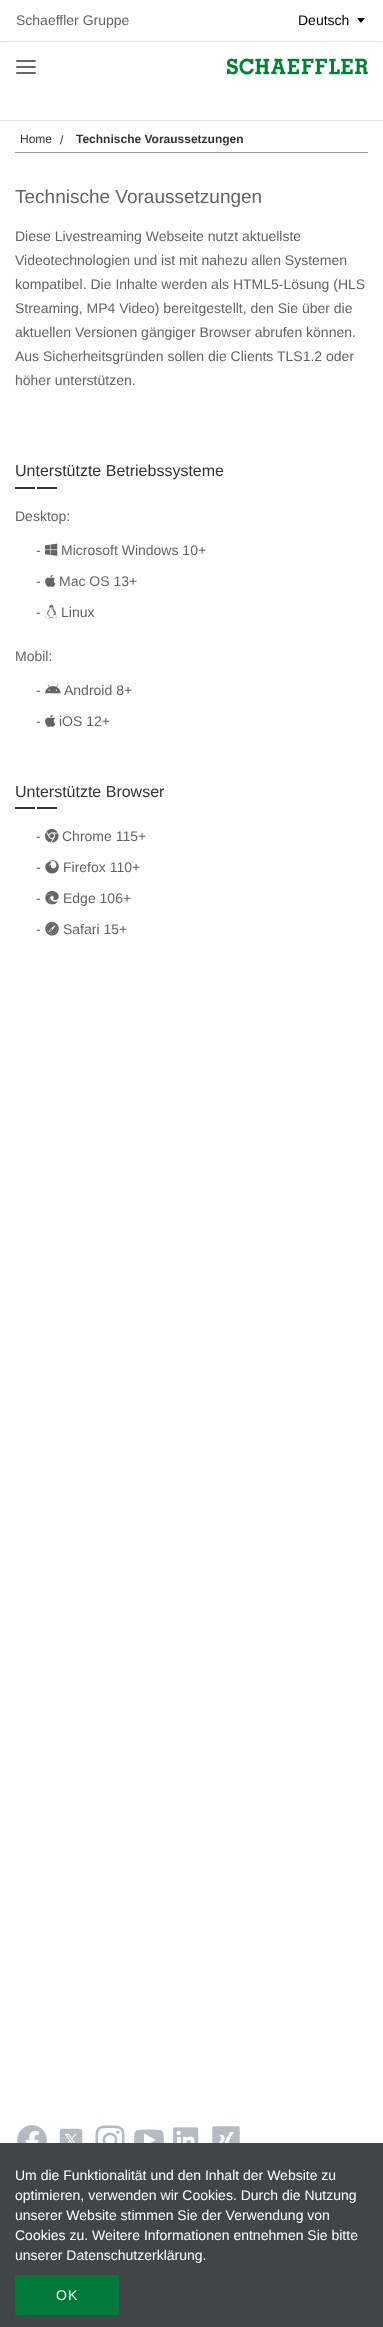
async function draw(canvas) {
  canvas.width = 383
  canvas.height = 2327
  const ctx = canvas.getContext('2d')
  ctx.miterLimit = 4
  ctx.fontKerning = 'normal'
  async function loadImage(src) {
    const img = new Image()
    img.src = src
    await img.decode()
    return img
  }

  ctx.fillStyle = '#fff'
  ctx.fillRect(0, 0, 383, 2327)
  ctx.fillStyle = '#dee4e7'
  ctx.fillRect(0, 120, 383, 1)
  ctx.beginPath()
  ctx.moveTo(383, 42)
  ctx.lineTo(0, 42)
  ctx.lineTo(1, 41)
  ctx.lineTo(382, 41)
  ctx.closePath()
  ctx.fill()
  ctx.font = '14px Liberation Sans'
  ctx.fillStyle = '#646464'
  ctx.fillText('Schaeffler Gruppe', 16, 25)
  ctx.fillStyle = '#000'
  ctx.fillText('Deutsch', 298, 25)
  ctx.beginPath()
  ctx.moveTo(357, 18)
  ctx.lineTo(365, 18)
  ctx.lineTo(361, 23)
  ctx.closePath()
  ctx.fill()
  ctx.fillStyle = '#666'
  ctx.beginPath()
  ctx.roundRect(16, 60, 20, 2, 1)
  ctx.fill()
  ctx.beginPath()
  ctx.roundRect(16, 66, 20, 2, 1)
  ctx.fill()
  ctx.beginPath()
  ctx.roundRect(16, 72, 20, 2, 1)
  ctx.fill()
  ctx.drawImage(await loadImage('image0.png'), 227, 58, 141, 17)
  ctx.fillStyle = '#999'
  ctx.fillRect(15, 152, 353, 1)
  ctx.font = '12px Liberation Sans'
  ctx.fillStyle = '#333'
  ctx.fillText('Home', 20, 143)
  ctx.fillText('/', 60, 144)
  ctx.font = 'bold 12px Liberation Sans'
  ctx.fillText('Technische Voraussetzungen', 76, 143)
  ctx.font = '19px Liberation Sans'
  ctx.fillStyle = '#646464'
  ctx.fillText('Technische Voraussetzungen', 15, 203)
  ctx.font = '14px Liberation Sans'
  ctx.fillText('Diese Livestreaming Webseite nutzt aktuellste', 15, 241)
  ctx.fillText('Videotechnologien und ist mit nahezu allen Systemen', 15, 265)
  ctx.fillText('kompatibel. Die Inhalte werden als HTML5-Lösung (HLS', 15, 289)
  ctx.fillText('Streaming, MP4 Video) bereitgestellt, den Sie über die', 15, 313)
  ctx.fillText('aktuellen Versionen gängiger Browser abrufen können.', 15, 337)
  ctx.fillText('Aus Sicherheitsgründen sollen die Clients TLS1.2 oder', 15, 361)
  ctx.fillText('höher unterstützen.', 15, 385)
  ctx.font = '16px Liberation Sans'
  ctx.fillStyle = '#333'
  ctx.fillText('Unterstützte Betriebssysteme', 15, 476)
  ctx.fillRect(37, 487, 20, 2)
  ctx.fillRect(15, 487, 20, 2)
  ctx.font = '14px Liberation Sans'
  ctx.fillStyle = '#646464'
  ctx.fillText('Desktop:', 15, 521)
  ctx.fillText('-', 36, 555)
  ctx.drawImage(await loadImage('image1.png'), 45, 543, 13, 13)
  ctx.fillText('Microsoft Windows 10+', 61, 555)
  ctx.fillText('-', 36, 586)
  ctx.drawImage(await loadImage('image2.png'), 45, 574, 11, 13)
  ctx.fillText('Mac OS 13+', 59, 586)
  ctx.fillText('-', 36, 617)
  ctx.drawImage(await loadImage('image3.png'), 45, 604, 12, 15)
  ctx.fillText('Linux', 61, 617)
  ctx.fillText('Mobil:', 15, 661)
  ctx.fillText('-', 36, 695)
  ctx.drawImage(await loadImage('image4.png'), 45, 684, 16, 10)
  ctx.fillText('Android 8+', 64, 695)
  ctx.fillText('-', 36, 726)
  ctx.drawImage(await loadImage('image2.png'), 45, 714, 11, 13)
  ctx.fillText('iOS 12+', 59, 726)
  ctx.font = '16px Liberation Sans'
  ctx.fillStyle = '#333'
  ctx.fillText('Unterstützte Browser', 15, 797)
  ctx.fillRect(37, 807, 20, 2)
  ctx.fillRect(15, 807, 20, 2)
  ctx.font = '14px Liberation Sans'
  ctx.fillStyle = '#646464'
  ctx.fillText('-', 36, 841)
  ctx.drawImage(await loadImage('image5.png'), 45, 829, 14, 14)
  ctx.fillText('Chrome 115+', 62, 841)
  ctx.fillText('-', 36, 872)
  ctx.drawImage(await loadImage('image6.png'), 45, 860, 14, 14)
  ctx.fillText('Firefox 110+', 63, 872)
  ctx.fillText('-', 36, 903)
  ctx.drawImage(await loadImage('image7.png'), 45, 891, 14, 14)
  ctx.fillText('Edge 106+', 63, 903)
  ctx.fillText('-', 36, 934)
  ctx.drawImage(await loadImage('image8.png'), 45, 922, 14, 14)
  ctx.fillText('Safari 15+', 63, 934)
  ctx.drawImage(await loadImage('image9.png'), 17, 2125, 30, 18)
  ctx.drawImage(await loadImage('image10.png'), 59, 2128, 24, 15)
  ctx.drawImage(await loadImage('image11.png'), 95, 2125, 30, 18)
  ctx.drawImage(await loadImage('image12.png'), 134, 2129, 30, 14)
  ctx.drawImage(await loadImage('image13.png'), 173, 2127, 26, 16)
  ctx.drawImage(await loadImage('image14.png'), 212, 2126, 28, 17)
  ctx.fillStyle = '#414546'
  ctx.fillRect(0, 2143, 383, 184)
  ctx.fillStyle = '#fff'
  ctx.fillText('Um die Funktionalität und den Inhalt der Website zu', 15, 2180)
  ctx.fillText('optimieren, verwenden wir Cookies. Durch die Nutzung', 15, 2200)
  ctx.fillText('unserer Website stimmen Sie der Verwendung von', 15, 2220)
  ctx.fillText('Cookies zu. Weitere Informationen entnehmen Sie bitte', 15, 2240)
  ctx.fillText('unserer Datenschutzerklärung.', 15, 2260)
  ctx.fillStyle = '#00793a'
  ctx.beginPath()
  ctx.roundRect(15.5, 2275.5, 103, 39, 1.5)
  ctx.fill()
  ctx.strokeStyle = '#00793a'
  ctx.stroke()
  ctx.letterSpacing = '1px'
  ctx.fillStyle = '#fff'
  ctx.fillText('OK', 56, 2300)
}

draw(document.querySelector('canvas'))
